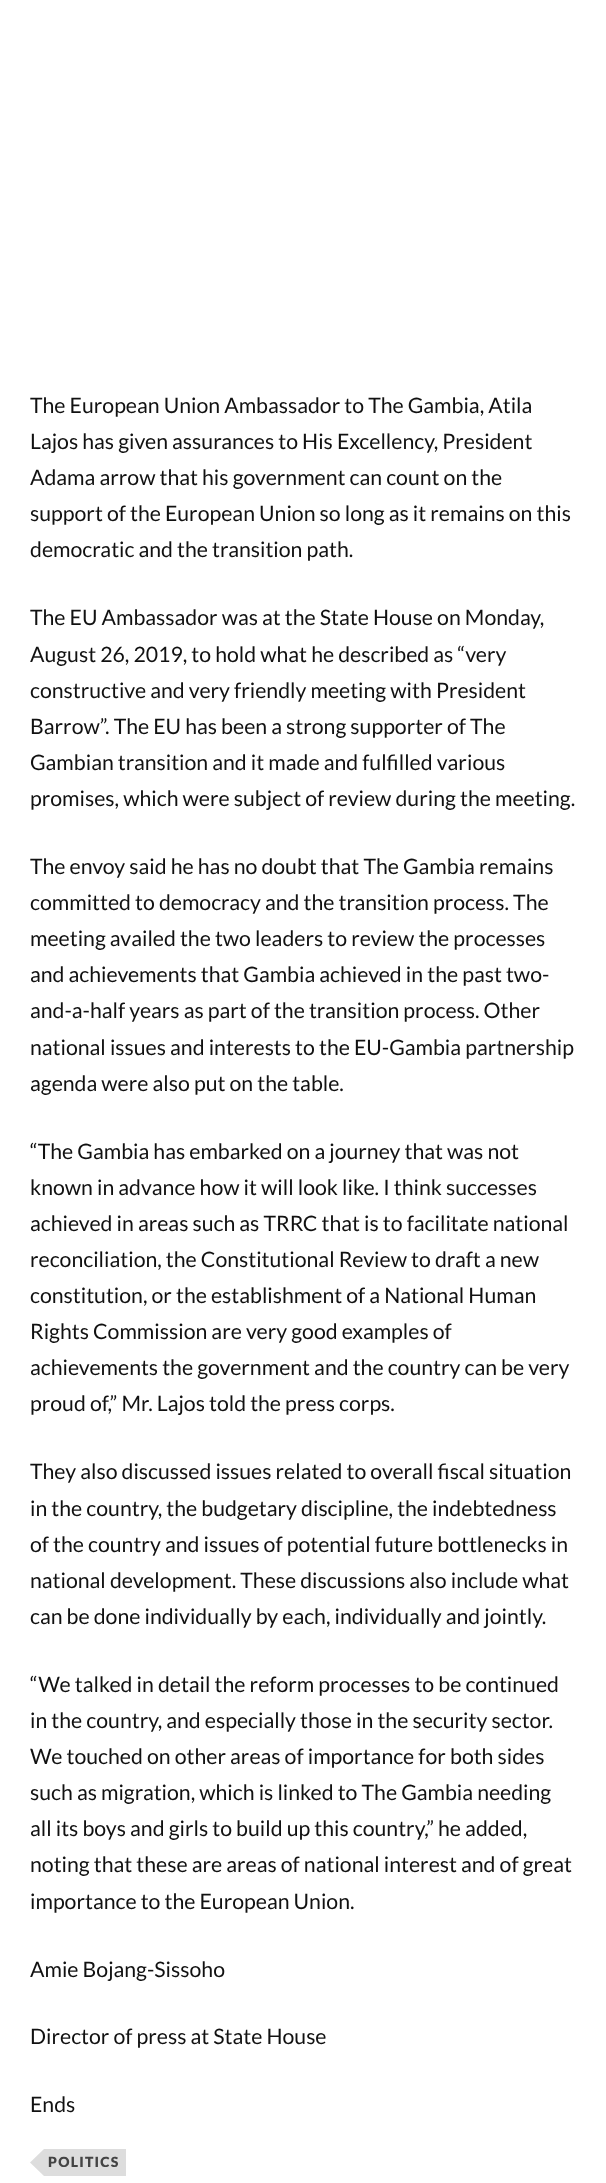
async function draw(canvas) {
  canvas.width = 606
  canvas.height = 2183
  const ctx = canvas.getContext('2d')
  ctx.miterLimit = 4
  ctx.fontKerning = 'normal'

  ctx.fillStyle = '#fff'
  ctx.fillRect(0, 0, 606, 2183)
  ctx.font = '21.25px Lato'
  ctx.fillStyle = '#111'
  ctx.fillText('The European Union Ambassador to The Gambia, Atila', 30, 413)
  ctx.fillText('Lajos has given assurances to His Excellency, President', 30, 449)
  ctx.fillText('Adama arrow that his government can count on the', 30, 485)
  ctx.fillText('support of the European Union so long as it remains on this', 30, 521)
  ctx.fillText('democratic and the transition path.', 30, 557)
  ctx.fillText('The EU Ambassador was at the State House on Monday,', 30, 625)
  ctx.fillText('August 26, 2019, to hold what he described as “very', 30, 662)
  ctx.fillText('constructive and very friendly meeting with President', 30, 698)
  ctx.fillText('Barrow”. The EU has been a strong supporter of The', 30, 734)
  ctx.fillText('Gambian transition and it made and fulfilled various', 30, 770)
  ctx.fillText('promises, which were subject of review during the meeting.', 30, 806)
  ctx.fillText('The envoy said he has no doubt that The Gambia remains', 30, 874)
  ctx.fillText('committed to democracy and the transition process. The', 30, 910)
  ctx.fillText('meeting availed the two leaders to review the processes', 30, 946)
  ctx.fillText('and achievements that Gambia achieved in the past two-', 30, 982)
  ctx.fillText('and-a-half years as part of the transition process. Other', 30, 1018)
  ctx.fillText('national issues and interests to the EU-Gambia partnership', 30, 1055)
  ctx.fillText('agenda were also put on the table.', 30, 1091)
  ctx.fillText('“The Gambia has embarked on a journey that was not', 30, 1159)
  ctx.fillText('known in advance how it will look like. I think successes', 30, 1195)
  ctx.fillText('achieved in areas such as TRRC that is to facilitate national', 30, 1231)
  ctx.fillText('reconciliation, the Constitutional Review to draft a new', 30, 1267)
  ctx.fillText('constitution, or the establishment of a National Human', 30, 1303)
  ctx.fillText('Rights Commission are very good examples of', 30, 1339)
  ctx.fillText('achievements the government and the country can be very', 30, 1375)
  ctx.fillText('proud of,” Mr. Lajos told the press corps.', 30, 1411)
  ctx.fillText('They also discussed issues related to overall fiscal situation', 30, 1479)
  ctx.fillText('in the country, the budgetary discipline, the indebtedness', 30, 1516)
  ctx.fillText('of the country and issues of potential future bottlenecks in', 30, 1552)
  ctx.fillText('national development. These discussions also include what', 30, 1588)
  ctx.fillText('can be done individually by each, individually and jointly.', 30, 1624)
  ctx.fillText('“We talked in detail the reform processes to be continued', 30, 1692)
  ctx.fillText('in the country, and especially those in the security sector.', 30, 1728)
  ctx.fillText('We touched on other areas of importance for both sides', 30, 1764)
  ctx.fillText('such as migration, which is linked to The Gambia needing', 30, 1800)
  ctx.fillText('all its boys and girls to build up this country,” he added,', 30, 1836)
  ctx.fillText('noting that these are areas of national interest and of great', 30, 1872)
  ctx.fillText('importance to the European Union.', 30, 1909)
  ctx.fillText('Amie Bojang-Sissoho', 30, 1977)
  ctx.fillText('Director of press at State House', 30, 2044)
  ctx.fillText('Ends', 30, 2112)
  ctx.fillStyle = '#ddd'
  ctx.fillRect(44, 2149, 82, 27)
  ctx.beginPath()
  ctx.moveTo(44, 2149)
  ctx.lineTo(44, 2176)
  ctx.lineTo(30, 2162.5)
  ctx.closePath()
  ctx.fill()
  ctx.letterSpacing = '1.25px'
  ctx.font = '900 14px Lato'
  ctx.fillStyle = '#444'
  ctx.fillText('POLITICS', 48, 2167)
}

draw(document.querySelector('canvas'))
